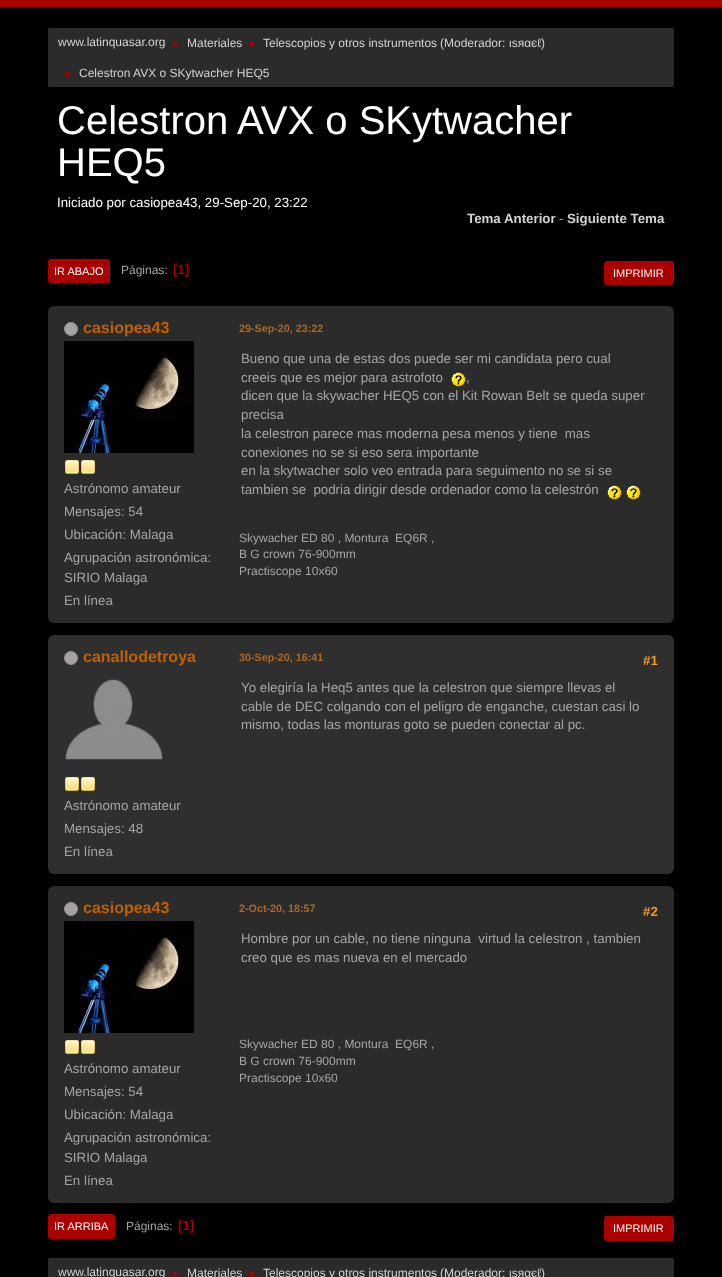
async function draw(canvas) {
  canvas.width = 722
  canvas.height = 1277
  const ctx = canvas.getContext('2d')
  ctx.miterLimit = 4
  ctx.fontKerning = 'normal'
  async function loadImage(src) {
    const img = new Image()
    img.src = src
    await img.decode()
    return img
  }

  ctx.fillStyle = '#000'
  ctx.fillRect(0, 0, 722, 1277)
  ctx.fillStyle = '#a00'
  ctx.fillRect(0, 0, 722, 7)
  ctx.fillStyle = '#2b2b2b'
  ctx.beginPath()
  ctx.roundRect(48, 28, 626, 59, 2)
  ctx.fill()
  ctx.font = '12px Liberation Sans'
  ctx.fillStyle = '#d2d2d2'
  ctx.fillText('www.latinquasar.org', 58, 46)
  ctx.font = '10px Liberation Sans'
  ctx.fillStyle = '#a00'
  ctx.fillText('►', 171, 47)
  ctx.font = '12px Liberation Sans'
  ctx.fillStyle = '#d2d2d2'
  ctx.fillText('Materiales', 187, 47)
  ctx.font = '10px Liberation Sans'
  ctx.fillStyle = '#a00'
  ctx.fillText('►', 248, 47)
  ctx.font = '12px Liberation Sans'
  ctx.fillStyle = '#d2d2d2'
  ctx.fillText('Telescopios y otros instrumentos', 263, 47)
  ctx.fillText('(Moderador:', 440, 47)
  ctx.fillText('ιѕяαєℓ', 509, 47)
  ctx.fillText(')', 541, 47)
  ctx.font = '10px Liberation Sans'
  ctx.fillStyle = '#a00'
  ctx.fillText('►', 64, 77)
  ctx.font = '12px Liberation Sans'
  ctx.fillStyle = '#d2d2d2'
  ctx.fillText('Celestron AVX o SKytwacher HEQ5', 79, 77)
  ctx.font = '40px Liberation Sans'
  ctx.fillStyle = '#fff'
  ctx.fillText('Celestron AVX o SKytwacher', 57, 134)
  ctx.fillText('HEQ5', 57, 176)
  ctx.font = '13.3px Liberation Sans'
  ctx.fillText('Iniciado por casiopea43, 29-Sep-20, 23:22', 57, 207)
  ctx.font = 'bold 13.3px Liberation Sans'
  ctx.fillStyle = '#d2d2d2'
  ctx.fillText('Tema Anterior', 467, 223)
  ctx.font = '13.3px Liberation Sans'
  ctx.fillStyle = '#a5a5a5'
  ctx.fillText('-', 559, 223)
  ctx.font = 'bold 13.3px Liberation Sans'
  ctx.fillStyle = '#d2d2d2'
  ctx.fillText('Siguiente Tema', 567, 223)
  ctx.fillStyle = '#a00'
  ctx.beginPath()
  ctx.roundRect(48.5, 259.5, 61, 23, 2.5)
  ctx.fill()
  ctx.strokeStyle = '#a00'
  ctx.stroke()
  ctx.font = '11px Liberation Sans'
  ctx.fillStyle = '#fff'
  ctx.fillText('IR ABAJO', 54, 275)
  ctx.font = '12px Liberation Sans'
  ctx.fillStyle = '#a5a5a5'
  ctx.fillText('Páginas:', 121, 274)
  ctx.font = 'bold 13.3px Liberation Sans'
  ctx.fillStyle = '#a00'
  ctx.fillText('[1]', 173, 274)
  ctx.beginPath()
  ctx.roundRect(604.5, 261.5, 69, 23, 2.5)
  ctx.fill()
  ctx.stroke()
  ctx.font = '11px Liberation Sans'
  ctx.fillStyle = '#fff'
  ctx.fillText('IMPRIMIR', 613, 277)
  ctx.fillStyle = '#2b2b2b'
  ctx.beginPath()
  ctx.roundRect(48, 306, 626, 317, 6)
  ctx.fill()
  ctx.fillStyle = '#a7a2a2'
  ctx.beginPath()
  ctx.arc(71, 329, 6.5, 0, 2 * Math.PI)
  ctx.fill()
  ctx.strokeStyle = '#969292'
  ctx.stroke()
  ctx.font = 'bold 16px Liberation Sans'
  ctx.fillStyle = '#c06002'
  ctx.fillText('casiopea43', 83, 333)
  ctx.drawImage(await loadImage('image0.png'), 64, 341, 130, 112)
  ctx.drawImage(await loadImage('image1.png'), 65, 460, 14, 14)
  ctx.drawImage(await loadImage('image1.png'), 81, 460, 14, 14)
  ctx.font = '13.3px Liberation Sans'
  ctx.fillStyle = '#a5a5a5'
  ctx.fillText('Astrónomo amateur', 64, 493)
  ctx.fillText('Mensajes: 54', 64, 516)
  ctx.fillText('Ubicación: Malaga', 64, 539)
  ctx.fillText('Agrupación astronómica:', 64, 562)
  ctx.fillText('SIRIO Malaga', 64, 582)
  ctx.fillText('En línea', 64, 605)
  ctx.font = 'bold 10.75px Liberation Sans'
  ctx.fillStyle = '#ad6825'
  ctx.fillText('29-Sep-20, 23:22', 239, 332)
  ctx.font = '13.3px Liberation Sans'
  ctx.fillStyle = '#a5a5a5'
  ctx.fillText('Bueno que una de estas dos puede ser mi candidata pero cual', 241, 363)
  ctx.fillText('creeis que es mejor para astrofoto', 241, 382)
  ctx.drawImage(await loadImage('image2.png'), 451, 372, 15, 15)
  ctx.fillText(',', 466, 382)
  ctx.fillText('dicen que la skywacher HEQ5 con el Kit Rowan Belt se queda super', 241, 400)
  ctx.fillText('precisa', 241, 419)
  ctx.fillText('la celestron parece mas moderna pesa menos y tiene  mas', 241, 438)
  ctx.fillText('conexiones no se si eso sera importante', 241, 457)
  ctx.fillText('en la skytwacher solo veo entrada para seguimento no se si se', 241, 475)
  ctx.fillText('tambien se  podria dirigir desde ordenador como la celestrón', 241, 494)
  ctx.drawImage(await loadImage('image2.png'), 607, 485, 15, 15)
  ctx.drawImage(await loadImage('image2.png'), 626, 485, 15, 15)
  ctx.font = '12px Liberation Sans'
  ctx.fillText('Skywacher ED 80 , Montura  EQ6R ,', 239, 542)
  ctx.fillText('B G crown 76-900mm', 239, 558)
  ctx.fillText('Practiscope 10x60', 239, 575)
  ctx.fillStyle = '#2f2f2f'
  ctx.beginPath()
  ctx.roundRect(48, 635, 626, 239, 6)
  ctx.fill()
  ctx.fillStyle = '#a7a2a2'
  ctx.beginPath()
  ctx.arc(71, 658, 6.5, 0, 2 * Math.PI)
  ctx.fill()
  ctx.stroke()
  ctx.font = 'bold 16px Liberation Sans'
  ctx.fillStyle = '#c06002'
  ctx.fillText('canallodetroya', 83, 662)
  ctx.drawImage(await loadImage('image3.png'), 65, 679, 98, 81)
  ctx.drawImage(await loadImage('image4.png'), 65, 777, 14, 14)
  ctx.drawImage(await loadImage('image4.png'), 81, 777, 14, 14)
  ctx.font = '13.3px Liberation Sans'
  ctx.fillStyle = '#a5a5a5'
  ctx.fillText('Astrónomo amateur', 64, 810)
  ctx.fillText('Mensajes: 48', 64, 833)
  ctx.fillText('En línea', 64, 856)
  ctx.font = 'bold 10.75px Liberation Sans'
  ctx.fillStyle = '#ad6825'
  ctx.fillText('30-Sep-20, 16:41', 239, 661)
  ctx.font = 'bold 13.3px Liberation Sans'
  ctx.fillStyle = '#f39c12'
  ctx.fillText('#1', 643, 665)
  ctx.font = '13.3px Liberation Sans'
  ctx.fillStyle = '#a5a5a5'
  ctx.fillText('Yo elegiría la Heq5 antes que la celestron que siempre llevas el', 241, 692)
  ctx.fillText('cable de DEC colgando con el peligro de enganche, cuestan casi lo', 241, 711)
  ctx.fillText('mismo, todas las monturas goto se pueden conectar al pc.', 241, 729)
  ctx.fillStyle = '#2b2b2b'
  ctx.beginPath()
  ctx.roundRect(48, 886, 626, 317, 6)
  ctx.fill()
  ctx.fillStyle = '#a7a2a2'
  ctx.beginPath()
  ctx.arc(71, 909, 6.5, 0, 2 * Math.PI)
  ctx.fill()
  ctx.stroke()
  ctx.font = 'bold 16px Liberation Sans'
  ctx.fillStyle = '#c06002'
  ctx.fillText('casiopea43', 83, 913)
  ctx.drawImage(await loadImage('image0.png'), 64, 921, 130, 112)
  ctx.drawImage(await loadImage('image1.png'), 65, 1040, 14, 14)
  ctx.drawImage(await loadImage('image1.png'), 81, 1040, 14, 14)
  ctx.font = '13.3px Liberation Sans'
  ctx.fillStyle = '#a5a5a5'
  ctx.fillText('Astrónomo amateur', 64, 1073)
  ctx.fillText('Mensajes: 54', 64, 1096)
  ctx.fillText('Ubicación: Malaga', 64, 1119)
  ctx.fillText('Agrupación astronómica:', 64, 1142)
  ctx.fillText('SIRIO Malaga', 64, 1162)
  ctx.fillText('En línea', 64, 1185)
  ctx.font = 'bold 10.75px Liberation Sans'
  ctx.fillStyle = '#ad6825'
  ctx.fillText('2-Oct-20, 18:57', 239, 912)
  ctx.font = 'bold 13.3px Liberation Sans'
  ctx.fillStyle = '#f39c12'
  ctx.fillText('#2', 643, 916)
  ctx.font = '13.3px Liberation Sans'
  ctx.fillStyle = '#a5a5a5'
  ctx.fillText('Hombre por un cable, no tiene ninguna  virtud la celestron , tambien', 241, 943)
  ctx.fillText('creo que es mas nueva en el mercado', 241, 962)
  ctx.font = '12px Liberation Sans'
  ctx.fillText('Skywacher ED 80 , Montura  EQ6R ,', 239, 1048)
  ctx.fillText('B G crown 76-900mm', 239, 1065)
  ctx.fillText('Practiscope 10x60', 239, 1082)
  ctx.fillStyle = '#a00'
  ctx.beginPath()
  ctx.roundRect(48.5, 1214.5, 66, 24, 2.5)
  ctx.fill()
  ctx.strokeStyle = '#a00'
  ctx.stroke()
  ctx.font = '11px Liberation Sans'
  ctx.fillStyle = '#fff'
  ctx.fillText('IR ARRIBA', 54, 1230)
  ctx.font = '12px Liberation Sans'
  ctx.fillStyle = '#a5a5a5'
  ctx.fillText('Páginas:', 126, 1230)
  ctx.font = 'bold 13.3px Liberation Sans'
  ctx.fillStyle = '#a00'
  ctx.fillText('[1]', 178, 1230)
  ctx.beginPath()
  ctx.roundRect(604.5, 1216.5, 69, 24, 2.5)
  ctx.fill()
  ctx.stroke()
  ctx.font = '11px Liberation Sans'
  ctx.fillStyle = '#fff'
  ctx.fillText('IMPRIMIR', 613, 1232)
  ctx.fillStyle = '#2b2b2b'
  ctx.beginPath()
  ctx.roundRect(48, 1258, 626, 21, 2)
  ctx.fill()
  ctx.font = '12px Liberation Sans'
  ctx.fillStyle = '#d2d2d2'
  ctx.fillText('www.latinquasar.org', 58, 1276)
  ctx.font = '10px Liberation Sans'
  ctx.fillStyle = '#a00'
  ctx.fillText('►', 171, 1277)
  ctx.font = '12px Liberation Sans'
  ctx.fillStyle = '#d2d2d2'
  ctx.fillText('Materiales', 187, 1277)
  ctx.font = '10px Liberation Sans'
  ctx.fillStyle = '#a00'
  ctx.fillText('►', 248, 1277)
  ctx.font = '12px Liberation Sans'
  ctx.fillStyle = '#d2d2d2'
  ctx.fillText('Telescopios y otros instrumentos', 263, 1277)
  ctx.fillText('(Moderador:', 440, 1277)
  ctx.fillText('ιѕяαєℓ', 509, 1277)
  ctx.fillText(')', 541, 1277)
}

draw(document.querySelector('canvas'))
